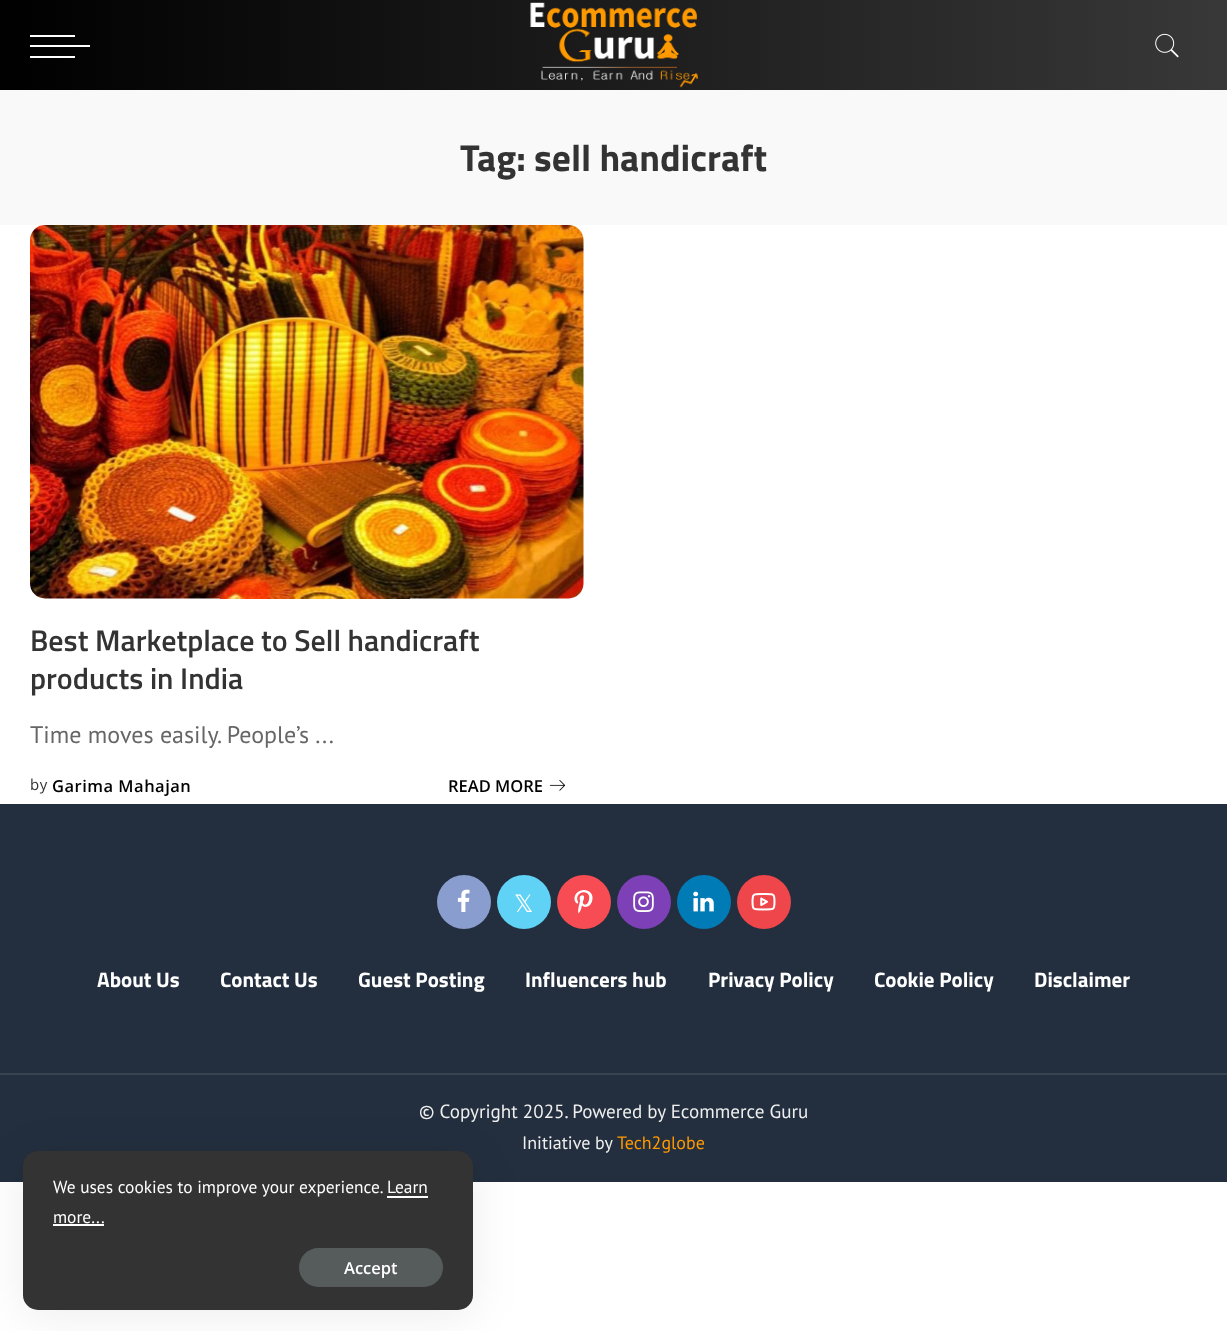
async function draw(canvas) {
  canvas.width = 1227
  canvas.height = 1331
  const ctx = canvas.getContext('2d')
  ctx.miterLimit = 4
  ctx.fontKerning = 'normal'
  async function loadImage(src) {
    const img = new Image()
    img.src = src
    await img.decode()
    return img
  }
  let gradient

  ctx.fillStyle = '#fff'
  ctx.fillRect(0, 0, 1227, 1331)
  gradient = ctx.createLinearGradient(0, 45, 1227, 45)
  gradient.addColorStop(0, '#000')
  gradient.addColorStop(1, '#383838')
  ctx.fillStyle = gradient
  ctx.fillRect(0, 0, 1227, 90)
  ctx.fillStyle = '#fff'
  ctx.fillRect(30, 45, 60, 2)
  ctx.fillRect(30, 35, 45, 2)
  ctx.fillRect(30, 56, 45, 2)
  ctx.drawImage(await loadImage('image0.png'), 530, 2, 168, 86)
  ctx.drawImage(await loadImage('image1.png'), 1155, 33, 24, 25)
  ctx.fillStyle = '#f9f9f9'
  ctx.fillRect(0, 90, 1227, 135)
  ctx.font = 'bold 37.5px Titillium Web'
  ctx.fillStyle = '#333'
  ctx.fillText('Tag: sell handicraft', 460, 171)
  ctx.drawImage(await loadImage('image2.png'), 30, 225, 554, 374)
  ctx.font = '600 30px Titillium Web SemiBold'
  ctx.fillText('Best Marketplace to Sell handicraft', 30, 651)
  ctx.fillText('products in India', 30, 689)
  ctx.font = '24px PT Sans'
  ctx.fillStyle = '#666'
  ctx.fillText('Time moves easily. People’s ...', 30, 743)
  ctx.letterSpacing = '0.5px'
  ctx.font = '15px Open Sans'
  ctx.fillStyle = '#333'
  ctx.fillText('by', 30, 790)
  ctx.font = '600 16.5px Open Sans'
  ctx.fillStyle = '#000'
  ctx.fillText('Garima Mahajan', 52, 792)
  ctx.letterSpacing = '0px'
  ctx.fillText('READ MORE', 448, 792)
  ctx.drawImage(await loadImage('image3.png'), 549, 780, 17, 11)
  ctx.fillStyle = '#232f3e'
  ctx.fillRect(0, 804, 1227, 378)
  ctx.fillStyle = '#899dce'
  ctx.beginPath()
  ctx.arc(464, 902, 27, 0, 2 * Math.PI)
  ctx.fill()
  ctx.drawImage(await loadImage('image4.png'), 457, 889, 13, 23)
  ctx.fillStyle = '#60d2f5'
  ctx.beginPath()
  ctx.arc(524, 902, 27, 0, 2 * Math.PI)
  ctx.fill()
  ctx.font = '24px DejaVu Sans'
  ctx.fillStyle = '#fff'
  ctx.fillText('𝕏', 514, 912)
  ctx.fillStyle = '#f74c53'
  ctx.beginPath()
  ctx.arc(584, 902, 27, 0, 2 * Math.PI)
  ctx.fill()
  ctx.drawImage(await loadImage('image5.png'), 574, 890, 19, 24)
  ctx.fillStyle = '#7e40b6'
  ctx.beginPath()
  ctx.arc(644, 902, 27, 0, 2 * Math.PI)
  ctx.fill()
  ctx.drawImage(await loadImage('image6.png'), 633, 891, 21, 21)
  ctx.fillStyle = '#007bb6'
  ctx.beginPath()
  ctx.arc(704, 902, 27, 0, 2 * Math.PI)
  ctx.fill()
  ctx.drawImage(await loadImage('image7.png'), 693, 891, 21, 21)
  ctx.fillStyle = '#ef464b'
  ctx.beginPath()
  ctx.arc(764, 902, 27, 0, 2 * Math.PI)
  ctx.fill()
  ctx.drawImage(await loadImage('image8.png'), 751, 893, 25, 18)
  ctx.font = 'bold 21px Titillium Web'
  ctx.fillStyle = '#fff'
  ctx.fillText('About Us', 97, 987)
  ctx.fillText('Contact Us', 220, 987)
  ctx.fillText('Guest Posting', 358, 987)
  ctx.fillText('Influencers hub', 525, 987)
  ctx.fillText('Privacy Policy', 708, 987)
  ctx.fillText('Cookie Policy', 874, 987)
  ctx.fillText('Disclaimer', 1034, 987)
  ctx.fillStyle = '#394451'
  ctx.fillRect(0, 1073, 1227, 2)
  ctx.font = '19.1px PT Sans'
  ctx.fillStyle = '#efefef'
  ctx.fillText('© Copyright 2025. Powered by Ecommerce Guru', 419, 1118)
  ctx.font = '18px PT Sans'
  ctx.fillText('Initiative by', 522, 1149)
  ctx.fillStyle = '#f90'
  ctx.fillText('Tech2globe', 617, 1149)
  ctx.fillStyle = '#00000012'
  ctx.filter = 'blur(22.5px)'
  ctx.beginPath()
  ctx.roundRect(23, 1157, 450, 159, 15)
  ctx.fill()
  ctx.filter = 'none'
  ctx.fillStyle = '#333'
  ctx.beginPath()
  ctx.roundRect(23, 1151, 450, 159, 15)
  ctx.fill()
  ctx.font = '17.4px PT Sans'
  ctx.fillStyle = '#fff'
  ctx.fillText('We uses cookies to improve your experience.', 53, 1193)
  ctx.fillText('Learn', 387, 1193)
  ctx.fillRect(387, 1196, 41, 2)
  ctx.fillText('more...', 53, 1223)
  ctx.fillRect(53, 1224, 51, 2)
  ctx.fillStyle = '#565c5c'
  ctx.beginPath()
  ctx.roundRect(299, 1248, 144, 39, 19.5)
  ctx.fill()
  ctx.font = '600 16.5px Open Sans'
  ctx.fillStyle = '#fff'
  ctx.fillText('Accept', 344, 1274)
}

draw(document.querySelector('canvas'))
